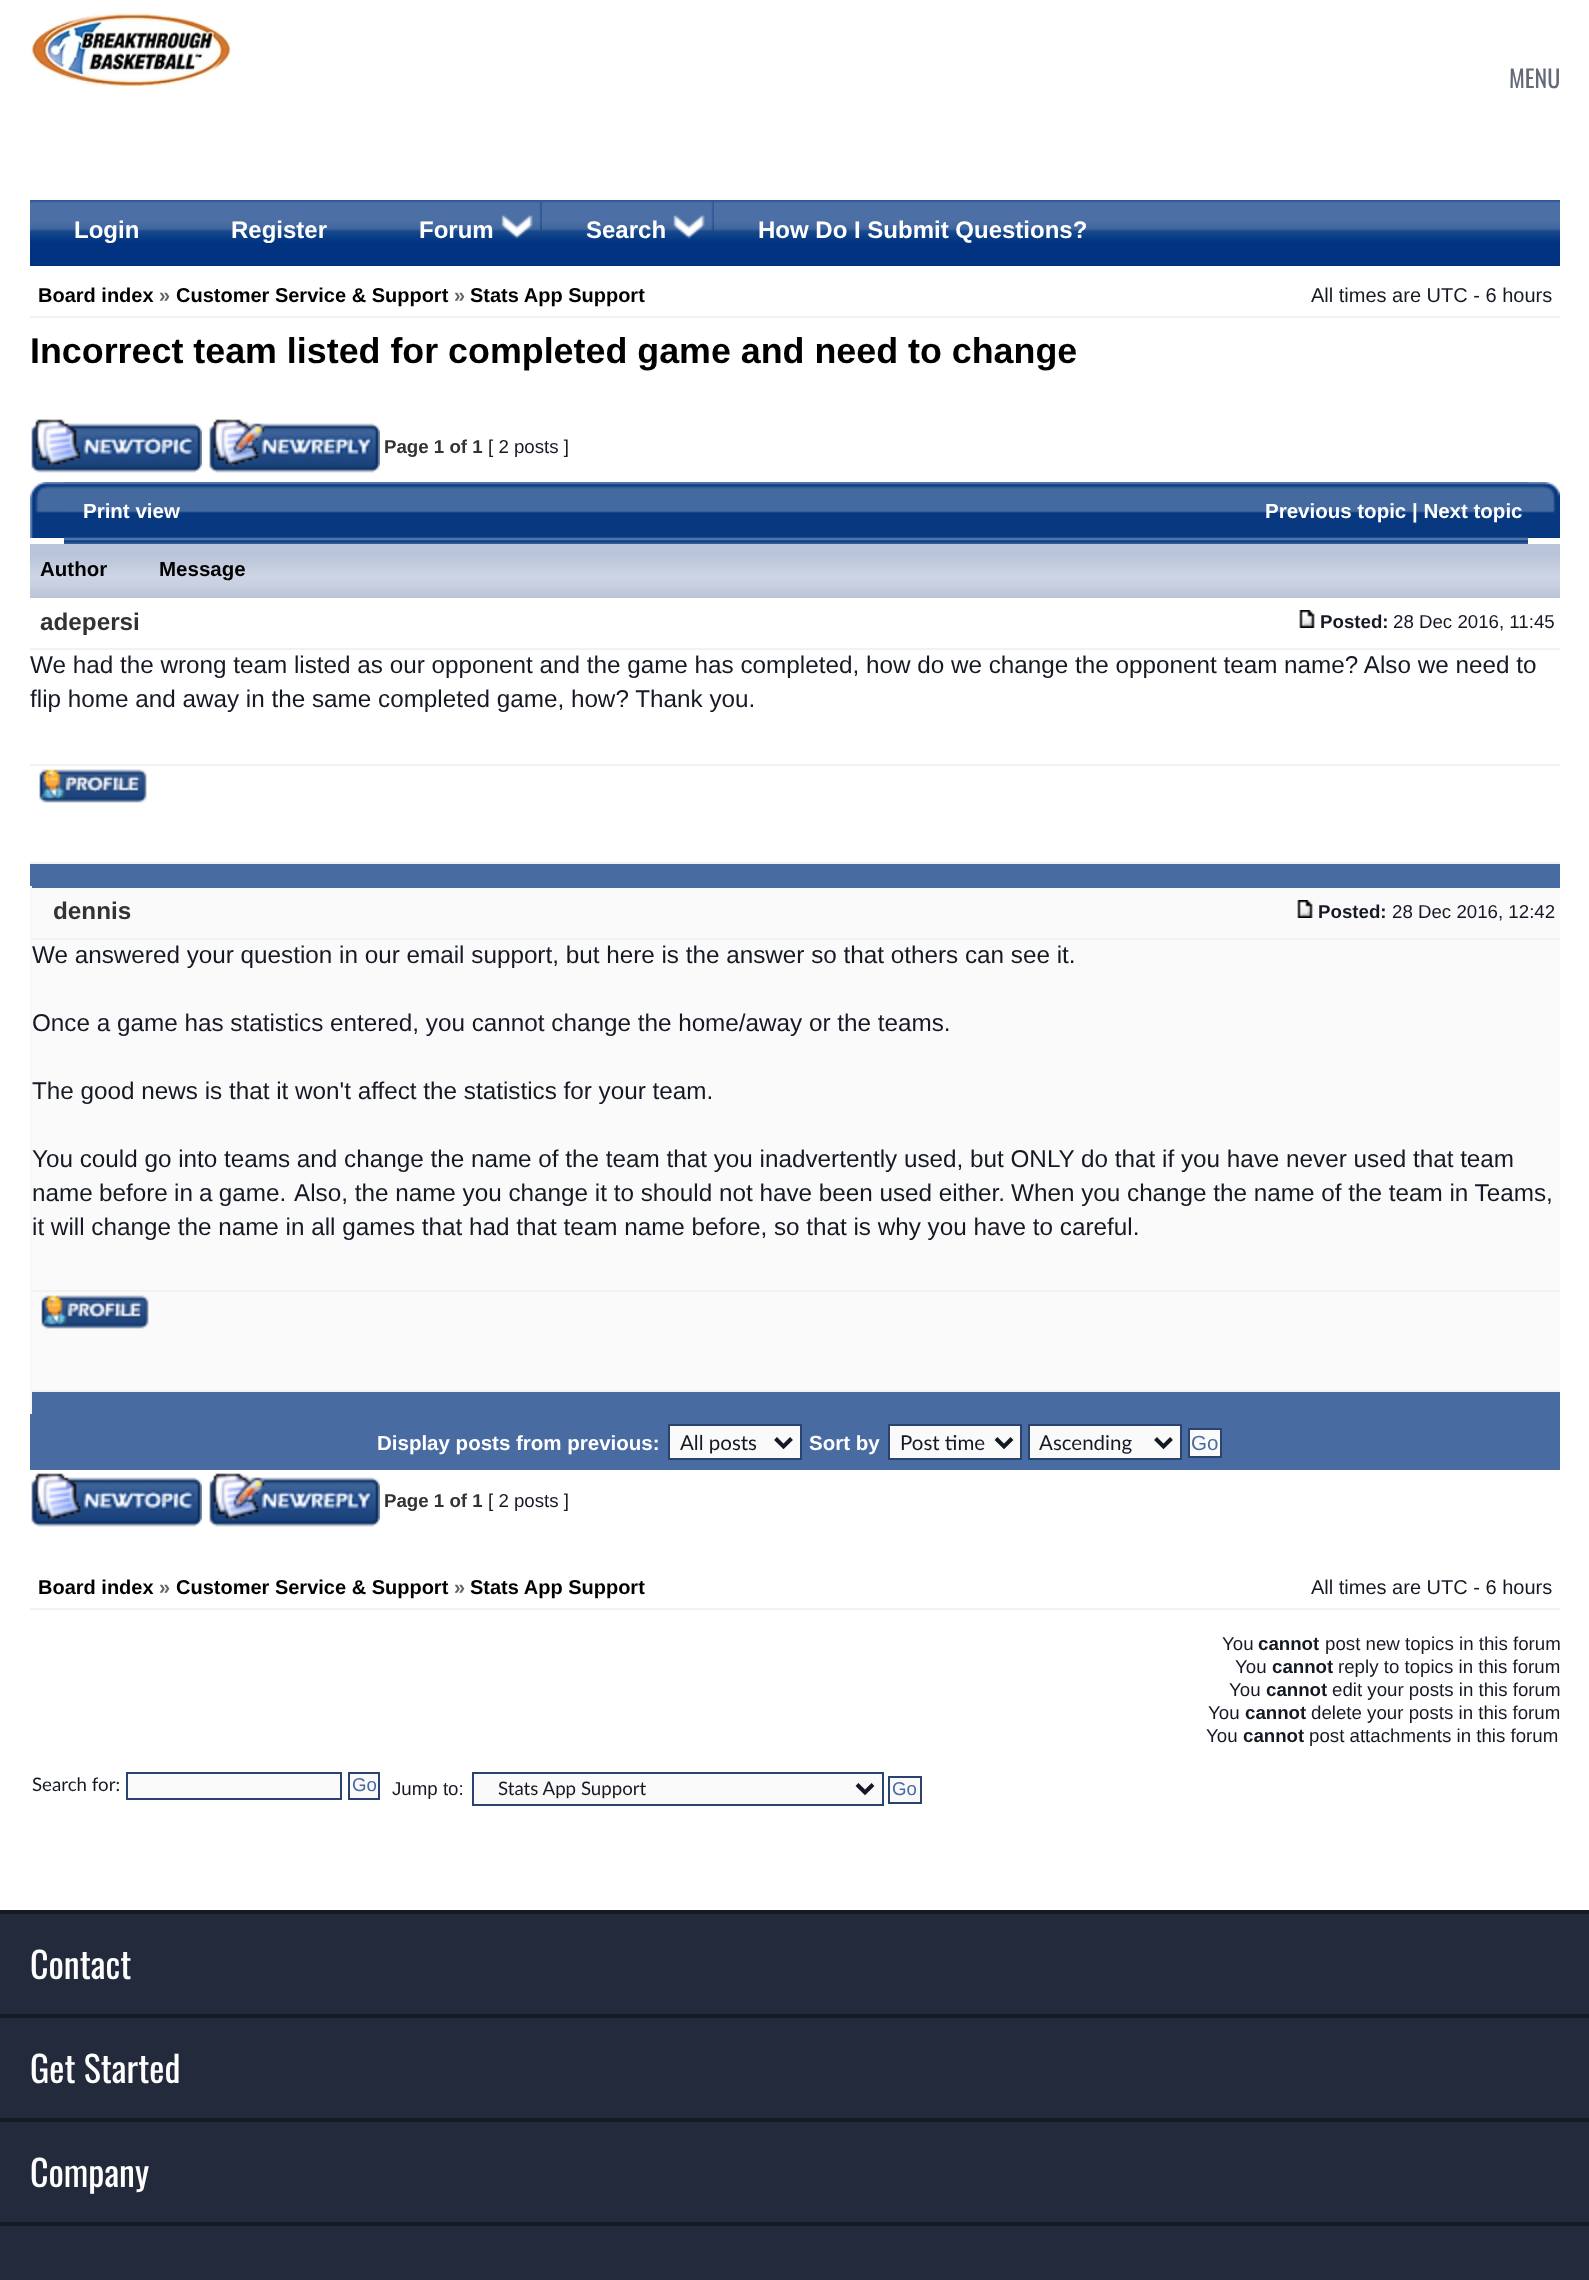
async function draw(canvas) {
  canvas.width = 1589
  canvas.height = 2280
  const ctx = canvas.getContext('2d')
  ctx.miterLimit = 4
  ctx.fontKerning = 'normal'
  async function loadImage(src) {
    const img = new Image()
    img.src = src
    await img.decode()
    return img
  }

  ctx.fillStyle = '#fff'
  ctx.fillRect(0, 0, 1589, 2280)
  ctx.drawImage(await loadImage('image0.png'), 30, 13, 201, 75)
  ctx.font = '24px Oswald'
  ctx.fillStyle = '#656a78'
  ctx.fillText('MENU', 1509, 88)
  ctx.drawImage(await loadImage('image1.png'), 30, 200, 1530, 66)
  ctx.font = 'bold 24px Liberation Sans'
  ctx.fillStyle = '#fff'
  ctx.fillText('Login', 74, 238)
  ctx.fillText('Register', 231, 238)
  ctx.drawImage(await loadImage('image2.png'), 501, 201, 41, 38)
  ctx.fillText('Forum', 419, 238)
  ctx.drawImage(await loadImage('image3.png'), 673, 201, 41, 38)
  ctx.fillText('Search', 586, 238)
  ctx.fillText('How Do I Submit Questions?', 758, 238)
  ctx.fillStyle = '#f2f2f2'
  ctx.fillRect(30, 316, 1530, 2)
  ctx.font = 'bold 20px Liberation Sans'
  ctx.fillStyle = '#000'
  ctx.fillText('Board index', 38, 302)
  ctx.fillStyle = '#666'
  ctx.fillText('»', 159, 302)
  ctx.fillStyle = '#000'
  ctx.fillText('Customer Service & Support', 176, 302)
  ctx.fillStyle = '#666'
  ctx.fillText('»', 454, 302)
  ctx.fillStyle = '#000'
  ctx.fillText('Stats App Support', 470, 302)
  ctx.font = '20px Liberation Sans'
  ctx.fillStyle = '#151924'
  ctx.fillText('All times are UTC - 6 hours', 1311, 302)
  ctx.font = 'bold 35.85px Liberation Sans'
  ctx.fillStyle = '#000'
  ctx.fillText('Incorrect team listed for completed game and need to change', 30, 363)
  ctx.drawImage(await loadImage('image4.png'), 31, 419, 171, 54)
  ctx.drawImage(await loadImage('image5.png'), 209, 419, 171, 54)
  ctx.font = 'bold 18.7px Liberation Sans'
  ctx.fillStyle = '#333'
  ctx.fillText('Page 1 of 1', 384, 453)
  ctx.font = '18.7px Liberation Sans'
  ctx.fillStyle = '#151924'
  ctx.fillText('[ 2 posts ]', 488, 453)
  ctx.drawImage(await loadImage('image6.png'), 30, 482, 34, 56)
  ctx.drawImage(await loadImage('image7.png'), 64, 482, 1096, 62)
  ctx.font = 'bold 20.5px Liberation Sans'
  ctx.fillStyle = '#fff'
  ctx.fillText('Print view', 83, 518)
  ctx.drawImage(await loadImage('image8.png'), 1160, 482, 368, 62)
  ctx.fillText('Previous topic | Next topic', 1265, 518)
  ctx.drawImage(await loadImage('image9.png'), 1528, 482, 32, 56)
  ctx.drawImage(await loadImage('image10.png'), 30, 544, 120, 54)
  ctx.fillStyle = '#000'
  ctx.fillText('Author', 40, 576)
  ctx.drawImage(await loadImage('image11.png'), 150, 544, 1410, 54)
  ctx.fillText('Message', 159, 576)
  ctx.fillStyle = '#f2f2f2'
  ctx.fillRect(30, 648, 1530, 2)
  ctx.font = 'bold 24.27px Liberation Sans'
  ctx.fillStyle = '#333'
  ctx.fillText('adepersi', 40, 630)
  ctx.drawImage(await loadImage('image12.png'), 1299, 610, 16, 18)
  ctx.font = 'bold 18.7px Liberation Sans'
  ctx.fillStyle = '#151924'
  ctx.fillText('Posted:', 1320, 628)
  ctx.font = '18.7px Liberation Sans'
  ctx.fillText('28 Dec 2016, 11:45', 1393, 628)
  ctx.fillStyle = '#f2f2f2'
  ctx.fillRect(30, 764, 1530, 2)
  ctx.font = '24.27px Liberation Sans'
  ctx.fillStyle = '#151924'
  ctx.fillText('We had the wrong team listed as our opponent and the game has completed, how do we change the opponent team name? Also we need to', 30, 673)
  ctx.fillText('flip home and away in the same completed game, how? Thank you.', 30, 707)
  ctx.fillStyle = '#f2f2f2'
  ctx.fillRect(30, 862, 1530, 2)
  ctx.drawImage(await loadImage('image13.png'), 39, 769, 108, 34)
  ctx.fillStyle = '#486ca1'
  ctx.fillRect(30, 864, 1530, 24)
  ctx.fillStyle = '#f8f8f8'
  ctx.fillRect(30, 1392, 2, 22)
  ctx.fillStyle = '#fafafa'
  ctx.fillRect(32, 888, 1528, 50)
  ctx.fillStyle = '#f2f2f2'
  ctx.fillRect(30, 1390, 1530, 2)
  ctx.fillStyle = '#f8f8f8'
  ctx.fillRect(30, 1290, 2, 102)
  ctx.fillStyle = '#f2f2f2'
  ctx.fillRect(30, 1290, 1530, 2)
  ctx.fillStyle = '#f8f8f8'
  ctx.fillRect(30, 938, 2, 354)
  ctx.fillStyle = '#f2f2f2'
  ctx.fillRect(30, 938, 1530, 2)
  ctx.fillStyle = '#f8f8f8'
  ctx.fillRect(30, 886, 2, 54)
  ctx.font = 'bold 24.27px Liberation Sans'
  ctx.fillStyle = '#333'
  ctx.fillText('dennis', 53, 919)
  ctx.drawImage(await loadImage('image14.png'), 1297, 900, 16, 18)
  ctx.font = 'bold 18.7px Liberation Sans'
  ctx.fillStyle = '#151924'
  ctx.fillText('Posted:', 1318, 918)
  ctx.font = '18.7px Liberation Sans'
  ctx.fillText('28 Dec 2016, 12:42', 1392, 918)
  ctx.fillStyle = '#fafafa'
  ctx.fillRect(32, 940, 1528, 350)
  ctx.font = '24.27px Liberation Sans'
  ctx.fillStyle = '#151924'
  ctx.fillText('We answered your question in our email support, but here is the answer so that others can see it.', 32, 963)
  ctx.fillText('Once a game has statistics entered, you cannot change the home/away or the teams.', 32, 1031)
  ctx.fillText('The good news is that it won\'t affect the statistics for your team.', 32, 1099)
  ctx.fillText('You could go into teams and change the name of the team that you inadvertently used, but ONLY do that if you have never used that team', 32, 1167)
  ctx.wordSpacing = '-0.5px'
  ctx.fillText('name before in a game.', 32, 1201)
  ctx.wordSpacing = '0px'
  ctx.fillText('Also, the name you change it to should not have been used either.', 294, 1201)
  ctx.fillText('When you change the name of the team in Teams,', 1011, 1201)
  ctx.fillText('it will change the name in all games that had that team name before, so that is why you have to careful.', 32, 1235)
  ctx.fillStyle = '#fafafa'
  ctx.fillRect(32, 1292, 1528, 98)
  ctx.drawImage(await loadImage('image15.png'), 41, 1295, 108, 34)
  ctx.fillStyle = '#486ca1'
  ctx.fillRect(32, 1392, 1528, 22)
  ctx.fillRect(30, 1414, 1530, 56)
  ctx.font = 'bold 20.5px Liberation Sans'
  ctx.fillStyle = '#fff'
  ctx.fillText('Display posts from previous:', 377, 1450)
  ctx.fillStyle = '#fafafa'
  ctx.beginPath()
  ctx.rect(669, 1425, 132, 34)
  ctx.fill()
  ctx.strokeStyle = '#2b4370'
  ctx.lineWidth = 2
  ctx.stroke()
  ctx.beginPath()
  ctx.moveTo(775.5, 1438.5)
  ctx.lineTo(783.5, 1446.5)
  ctx.lineTo(791.5, 1438.5)
  ctx.strokeStyle = '#151924'
  ctx.lineWidth = 4
  ctx.stroke()
  ctx.font = '20.5px Lato'
  ctx.fillStyle = '#151924'
  ctx.fillText('All posts', 680, 1450)
  ctx.font = 'bold 20.5px Liberation Sans'
  ctx.fillStyle = '#fff'
  ctx.fillText('Sort by', 809, 1450)
  ctx.fillStyle = '#fafafa'
  ctx.beginPath()
  ctx.rect(889, 1425, 132, 34)
  ctx.fill()
  ctx.strokeStyle = '#2b4370'
  ctx.lineWidth = 2
  ctx.stroke()
  ctx.beginPath()
  ctx.moveTo(996, 1438.5)
  ctx.lineTo(1004, 1446.5)
  ctx.lineTo(1012, 1438.5)
  ctx.strokeStyle = '#151924'
  ctx.lineWidth = 4
  ctx.stroke()
  ctx.font = '20.5px Lato'
  ctx.fillStyle = '#151924'
  ctx.fillText('Post time', 900, 1450)
  ctx.fillStyle = '#fafafa'
  ctx.beginPath()
  ctx.rect(1029, 1425, 152, 34)
  ctx.fill()
  ctx.strokeStyle = '#2b4370'
  ctx.lineWidth = 2
  ctx.stroke()
  ctx.beginPath()
  ctx.moveTo(1155.5, 1438.5)
  ctx.lineTo(1163.5, 1446.5)
  ctx.lineTo(1171.5, 1438.5)
  ctx.strokeStyle = '#151924'
  ctx.lineWidth = 4
  ctx.stroke()
  ctx.fillStyle = '#151924'
  ctx.fillText('Ascending', 1039, 1450)
  ctx.fillStyle = '#fafafa'
  ctx.beginPath()
  ctx.rect(1189, 1429, 32, 28)
  ctx.fill()
  ctx.strokeStyle = '#2b4370'
  ctx.lineWidth = 2
  ctx.stroke()
  ctx.font = '20.5px Liberation Sans'
  ctx.fillStyle = '#486ca1'
  ctx.fillText('Go', 1191, 1450)
  ctx.drawImage(await loadImage('image4.png'), 31, 1473, 171, 54)
  ctx.drawImage(await loadImage('image5.png'), 209, 1473, 171, 54)
  ctx.font = 'bold 18.7px Liberation Sans'
  ctx.fillStyle = '#333'
  ctx.fillText('Page 1 of 1', 384, 1507)
  ctx.font = '18.7px Liberation Sans'
  ctx.fillStyle = '#151924'
  ctx.fillText('[ 2 posts ]', 488, 1507)
  ctx.fillStyle = '#f2f2f2'
  ctx.fillRect(30, 1608, 1530, 2)
  ctx.font = 'bold 20px Liberation Sans'
  ctx.fillStyle = '#000'
  ctx.fillText('Board index', 38, 1594)
  ctx.fillStyle = '#666'
  ctx.fillText('»', 159, 1594)
  ctx.fillStyle = '#000'
  ctx.fillText('Customer Service & Support', 176, 1594)
  ctx.fillStyle = '#666'
  ctx.fillText('»', 454, 1594)
  ctx.fillStyle = '#000'
  ctx.fillText('Stats App Support', 470, 1594)
  ctx.font = '20px Liberation Sans'
  ctx.fillStyle = '#151924'
  ctx.fillText('All times are UTC - 6 hours', 1311, 1594)
  ctx.font = '18.7px Liberation Sans'
  ctx.fillText('You', 1222, 1650)
  ctx.font = 'bold 18.7px Liberation Sans'
  ctx.fillText('cannot', 1258, 1650)
  ctx.font = '18.7px Liberation Sans'
  ctx.fillText('post new topics in this forum', 1325, 1650)
  ctx.fillText('You', 1235, 1673)
  ctx.font = 'bold 18.7px Liberation Sans'
  ctx.fillText('cannot', 1272, 1673)
  ctx.font = '18.7px Liberation Sans'
  ctx.fillText('reply to topics in this forum', 1338, 1673)
  ctx.fillText('You', 1229, 1696)
  ctx.font = 'bold 18.7px Liberation Sans'
  ctx.fillText('cannot', 1266, 1696)
  ctx.font = '18.7px Liberation Sans'
  ctx.fillText('edit your posts in this forum', 1332, 1696)
  ctx.fillText('You', 1208, 1719)
  ctx.font = 'bold 18.7px Liberation Sans'
  ctx.fillText('cannot', 1245, 1719)
  ctx.font = '18.7px Liberation Sans'
  ctx.fillText('delete your posts in this forum', 1311, 1719)
  ctx.fillText('You', 1206, 1742)
  ctx.font = 'bold 18.7px Liberation Sans'
  ctx.fillText('cannot', 1243, 1742)
  ctx.font = '18.7px Liberation Sans'
  ctx.fillText('post attachments in this forum', 1309, 1742)
  ctx.font = '18.7px Lato'
  ctx.fillText('Search for:', 32, 1791)
  ctx.fillStyle = '#fafafa'
  ctx.beginPath()
  ctx.rect(127, 1773, 214, 26)
  ctx.fill()
  ctx.stroke()
  ctx.beginPath()
  ctx.rect(349, 1773, 30, 26)
  ctx.fill()
  ctx.stroke()
  ctx.font = '18.7px Liberation Sans'
  ctx.fillStyle = '#486ca1'
  ctx.fillText('Go', 352, 1791)
  ctx.fillStyle = '#151924'
  ctx.fillText('Jump to:', 392, 1795)
  ctx.fillStyle = '#fafafa'
  ctx.beginPath()
  ctx.rect(473, 1773, 410, 32)
  ctx.fill()
  ctx.stroke()
  ctx.beginPath()
  ctx.moveTo(857, 1784.5)
  ctx.lineTo(865, 1792.5)
  ctx.lineTo(873, 1784.5)
  ctx.strokeStyle = '#151924'
  ctx.lineWidth = 4
  ctx.stroke()
  ctx.font = '18.7px Lato'
  ctx.fillStyle = '#151924'
  ctx.fillText('Stats App Support', 498, 1795)
  ctx.fillStyle = '#fafafa'
  ctx.beginPath()
  ctx.rect(889, 1777, 32, 26)
  ctx.fill()
  ctx.strokeStyle = '#2b4370'
  ctx.lineWidth = 2
  ctx.stroke()
  ctx.font = '18.7px Liberation Sans'
  ctx.fillStyle = '#486ca1'
  ctx.fillText('Go', 892, 1795)
  ctx.fillStyle = '#232a3b'
  ctx.fillRect(0, 1914, 1589, 366)
  ctx.fillStyle = '#151924'
  ctx.fillRect(0, 1910, 1589, 4)
  ctx.font = '36px Oswald'
  ctx.fillStyle = '#fff'
  ctx.fillText('Contact', 30, 1979)
  ctx.fillStyle = '#151924'
  ctx.fillRect(0, 2014, 1589, 4)
  ctx.fillStyle = '#fff'
  ctx.fillText('Get Started', 30, 2083)
  ctx.fillStyle = '#151924'
  ctx.fillRect(0, 2118, 1589, 4)
  ctx.fillStyle = '#fff'
  ctx.fillText('Company', 30, 2187)
  ctx.fillStyle = '#151924'
  ctx.fillRect(0, 2222, 1589, 4)
}

draw(document.querySelector('canvas'))
